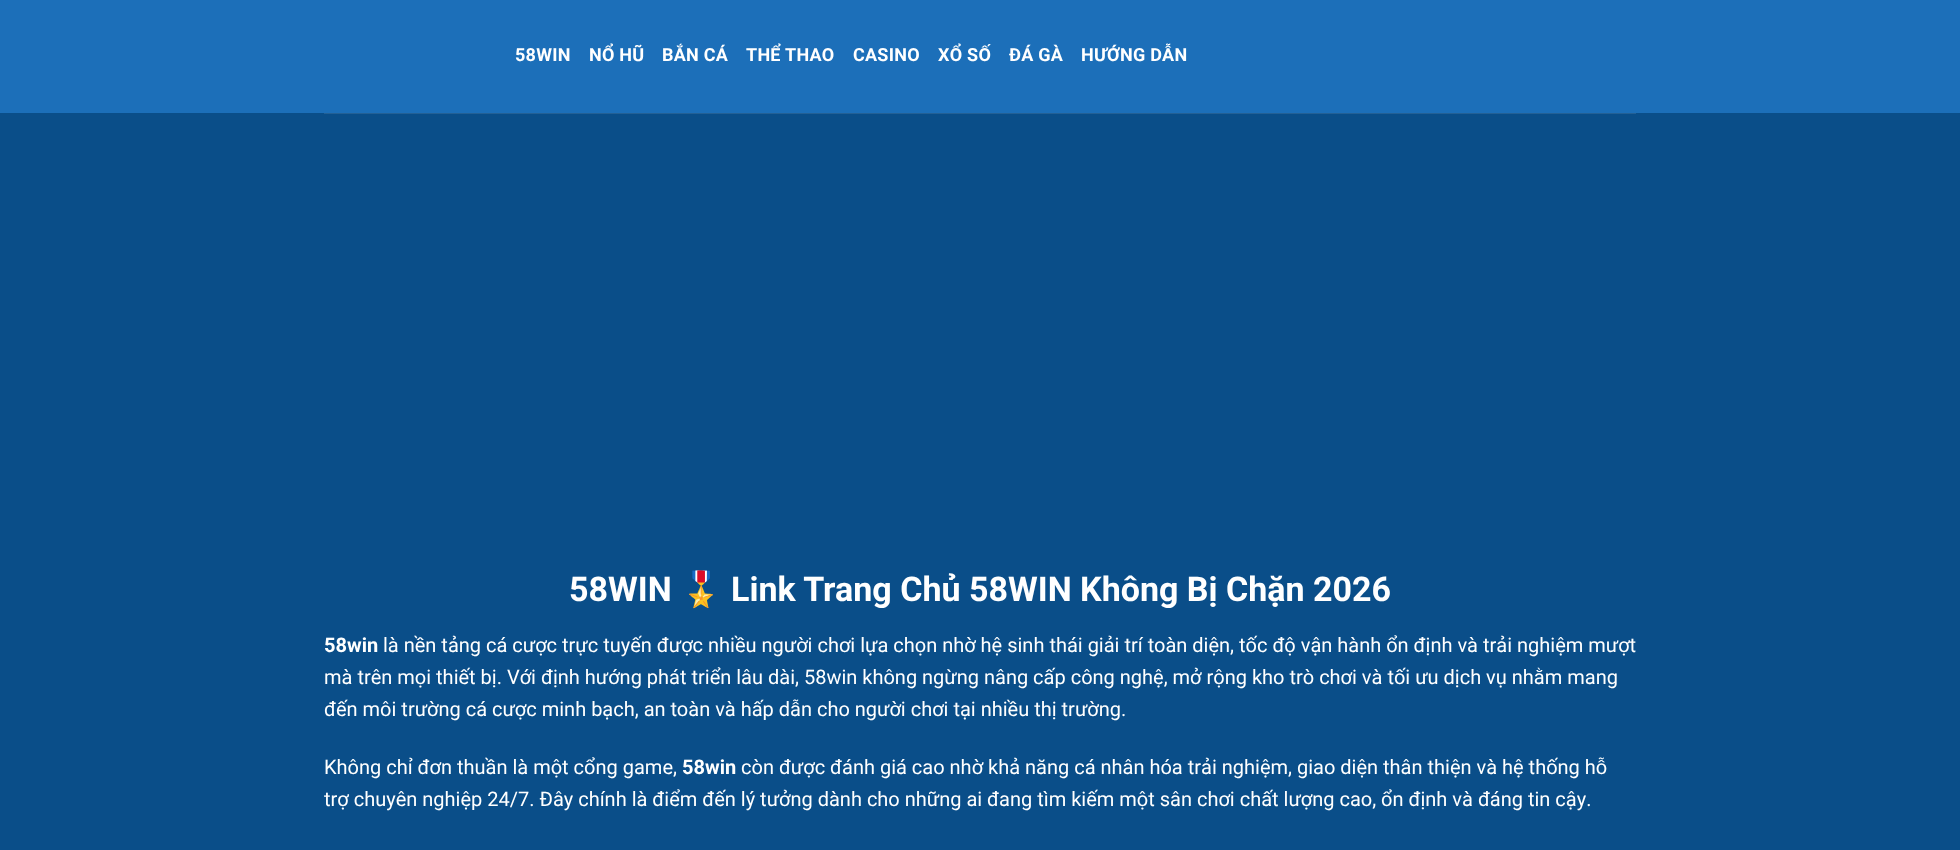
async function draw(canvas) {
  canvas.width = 1960
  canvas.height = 850
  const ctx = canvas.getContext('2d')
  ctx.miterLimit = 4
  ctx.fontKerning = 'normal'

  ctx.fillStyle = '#0a4e89'
  ctx.fillRect(0, 0, 1960, 850)
  ctx.fillStyle = '#1c6fb9'
  ctx.fillRect(0, 0, 1960, 113)
  ctx.letterSpacing = '0.25px'
  ctx.font = 'bold 18px Roboto'
  ctx.fillStyle = '#fff'
  ctx.fillText('58WIN', 515, 61)
  ctx.fillText('NỔ HŨ', 589, 61)
  ctx.fillText('BẮN CÁ', 662, 61)
  ctx.fillText('THỂ THAO', 746, 61)
  ctx.fillText('CASINO', 853, 61)
  ctx.fillText('XỔ SỐ', 938, 61)
  ctx.fillText('ĐÁ GÀ', 1009, 61)
  ctx.fillText('HƯỚNG DẪN', 1081, 61)
  ctx.fillStyle = '#236095'
  ctx.fillRect(324, 113, 1312, 1)
  ctx.letterSpacing = '0px'
  ctx.font = 'bold 34px Roboto'
  ctx.fillStyle = '#fff'
  ctx.fillText('58WIN', 569, 601)
  ctx.font = 'bold 34px Noto Color Emoji'
  ctx.fillText('🎖️', 680, 601)
  ctx.font = 'bold 34px Roboto'
  ctx.fillText('Link Trang Chủ 58WIN Không Bị Chặn 2026', 731, 601)
  ctx.font = 'bold 20px Roboto'
  ctx.fillText('58win', 324, 652)
  ctx.font = '20px Roboto'
  ctx.fillText('là nền tảng cá cược trực tuyến được nhiều người chơi lựa chọn nhờ hệ sinh thái giải trí toàn diện, tốc độ vận hành ổn định và trải nghiệm mượt', 383, 652)
  ctx.fillText('mà trên mọi thiết bị. Với định hướng phát triển lâu dài, 58win không ngừng nâng cấp công nghệ, mở rộng kho trò chơi và tối ưu dịch vụ nhằm mang', 324, 684)
  ctx.fillText('đến môi trường cá cược minh bạch, an toàn và hấp dẫn cho người chơi tại nhiều thị trường.', 324, 716)
  ctx.fillText('Không chỉ đơn thuần là một cổng game,', 324, 774)
  ctx.font = 'bold 20px Roboto'
  ctx.fillText('58win', 682, 774)
  ctx.font = '20px Roboto'
  ctx.fillText('còn được đánh giá cao nhờ khả năng cá nhân hóa trải nghiệm, giao diện thân thiện và hệ thống hỗ', 741, 774)
  ctx.fillText('trợ chuyên nghiệp 24/7. Đây chính là điểm đến lý tưởng dành cho những ai đang tìm kiếm một sân chơi chất lượng cao, ổn định và đáng tin cậy.', 324, 806)
}

draw(document.querySelector('canvas'))
